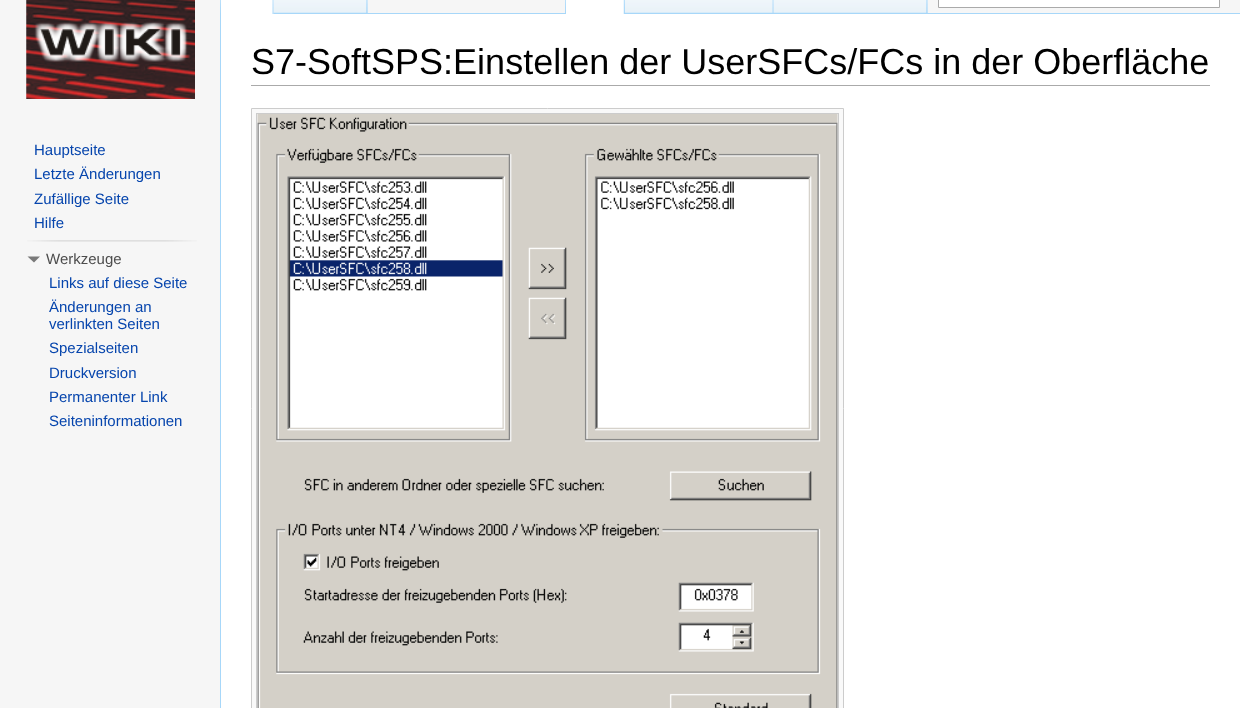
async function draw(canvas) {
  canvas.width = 1240
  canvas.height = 708
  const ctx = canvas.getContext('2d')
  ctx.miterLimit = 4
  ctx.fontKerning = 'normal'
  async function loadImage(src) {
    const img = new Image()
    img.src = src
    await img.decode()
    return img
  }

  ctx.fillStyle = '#f6f6f6'
  ctx.fillRect(0, 0, 1240, 708)
  ctx.fillStyle = '#fff'
  ctx.fillRect(221, 14, 1019, 694)
  ctx.fillStyle = '#a7d7f9'
  ctx.fillRect(367, 13, 873, 1)
  ctx.fillRect(220, 13, 1, 695)
  ctx.fillStyle = '#aaa'
  ctx.fillRect(251, 85, 959, 1)
  ctx.font = '36px Liberation Sans'
  ctx.fillStyle = '#000'
  ctx.fillText('S7-SoftSPS:Einstellen der UserSFCs/FCs in der Oberfläche', 251, 74)
  ctx.fillStyle = '#f9f9f9'
  ctx.beginPath()
  ctx.rect(251.5, 108.5, 592, 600)
  ctx.fill()
  ctx.strokeStyle = '#ccc'
  ctx.stroke()
  ctx.strokeRect(256.5, 113.5, 582, 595)
  ctx.drawImage(await loadImage('image0.png'), 257, 114, 581, 594)
  ctx.drawImage(await loadImage('image1.png'), 220, 0, 1, 13)
  ctx.drawImage(await loadImage('image2.png'), 367, 0, 1, 13)
  ctx.fillStyle = '#fff'
  ctx.fillRect(221, 0, 53, 14)
  ctx.drawImage(await loadImage('image3.png'), 272, 0, 2, 14)
  ctx.drawImage(await loadImage('image4.png'), 273, 0, 95, 14)
  ctx.drawImage(await loadImage('image5.png'), 366, 0, 2, 14)
  ctx.drawImage(await loadImage('image1.png'), 565, 0, 1, 13)
  ctx.drawImage(await loadImage('image2.png'), 927, 0, 1, 13)
  ctx.fillRect(566, 0, 58, 14)
  ctx.drawImage(await loadImage('image6.png'), 623, 0, 2, 14)
  ctx.drawImage(await loadImage('image7.png'), 625, 0, 149, 14)
  ctx.drawImage(await loadImage('image8.png'), 772, 0, 2, 14)
  ctx.drawImage(await loadImage('image9.png'), 773, 0, 155, 14)
  ctx.drawImage(await loadImage('image5.png'), 926, 0, 2, 14)
  ctx.beginPath()
  ctx.rect(938.5, -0.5, 281, 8)
  ctx.fill()
  ctx.strokeStyle = '#aaa'
  ctx.stroke()
  ctx.drawImage(await loadImage('image10.png'), 26, 0, 169, 99)
  ctx.font = '15px Liberation Sans'
  ctx.fillStyle = '#0645ad'
  ctx.fillText('Hauptseite', 34, 155)
  ctx.fillText('Letzte Änderungen', 34, 179)
  ctx.fillText('Zufällige Seite', 34, 204)
  ctx.fillText('Hilfe', 34, 228)
  ctx.drawImage(await loadImage('image11.png'), 27, 240, 170, 2)
  ctx.fillStyle = '#797979'
  ctx.beginPath()
  ctx.moveTo(40, 256.5)
  ctx.lineTo(34, 262.5)
  ctx.lineTo(27.5, 256.5)
  ctx.closePath()
  ctx.fill()
  ctx.fillStyle = '#4d4d4d'
  ctx.fillText('Werkzeuge', 46, 264)
  ctx.fillStyle = '#0645ad'
  ctx.fillText('Links auf diese Seite', 49, 288)
  ctx.fillText('Änderungen an', 49, 312)
  ctx.fillText('verlinkten Seiten', 49, 329)
  ctx.fillText('Spezialseiten', 49, 353)
  ctx.fillText('Druckversion', 49, 378)
  ctx.fillText('Permanenter Link', 49, 402)
  ctx.fillText('Seiteninformationen', 49, 426)
}

draw(document.querySelector('canvas'))
